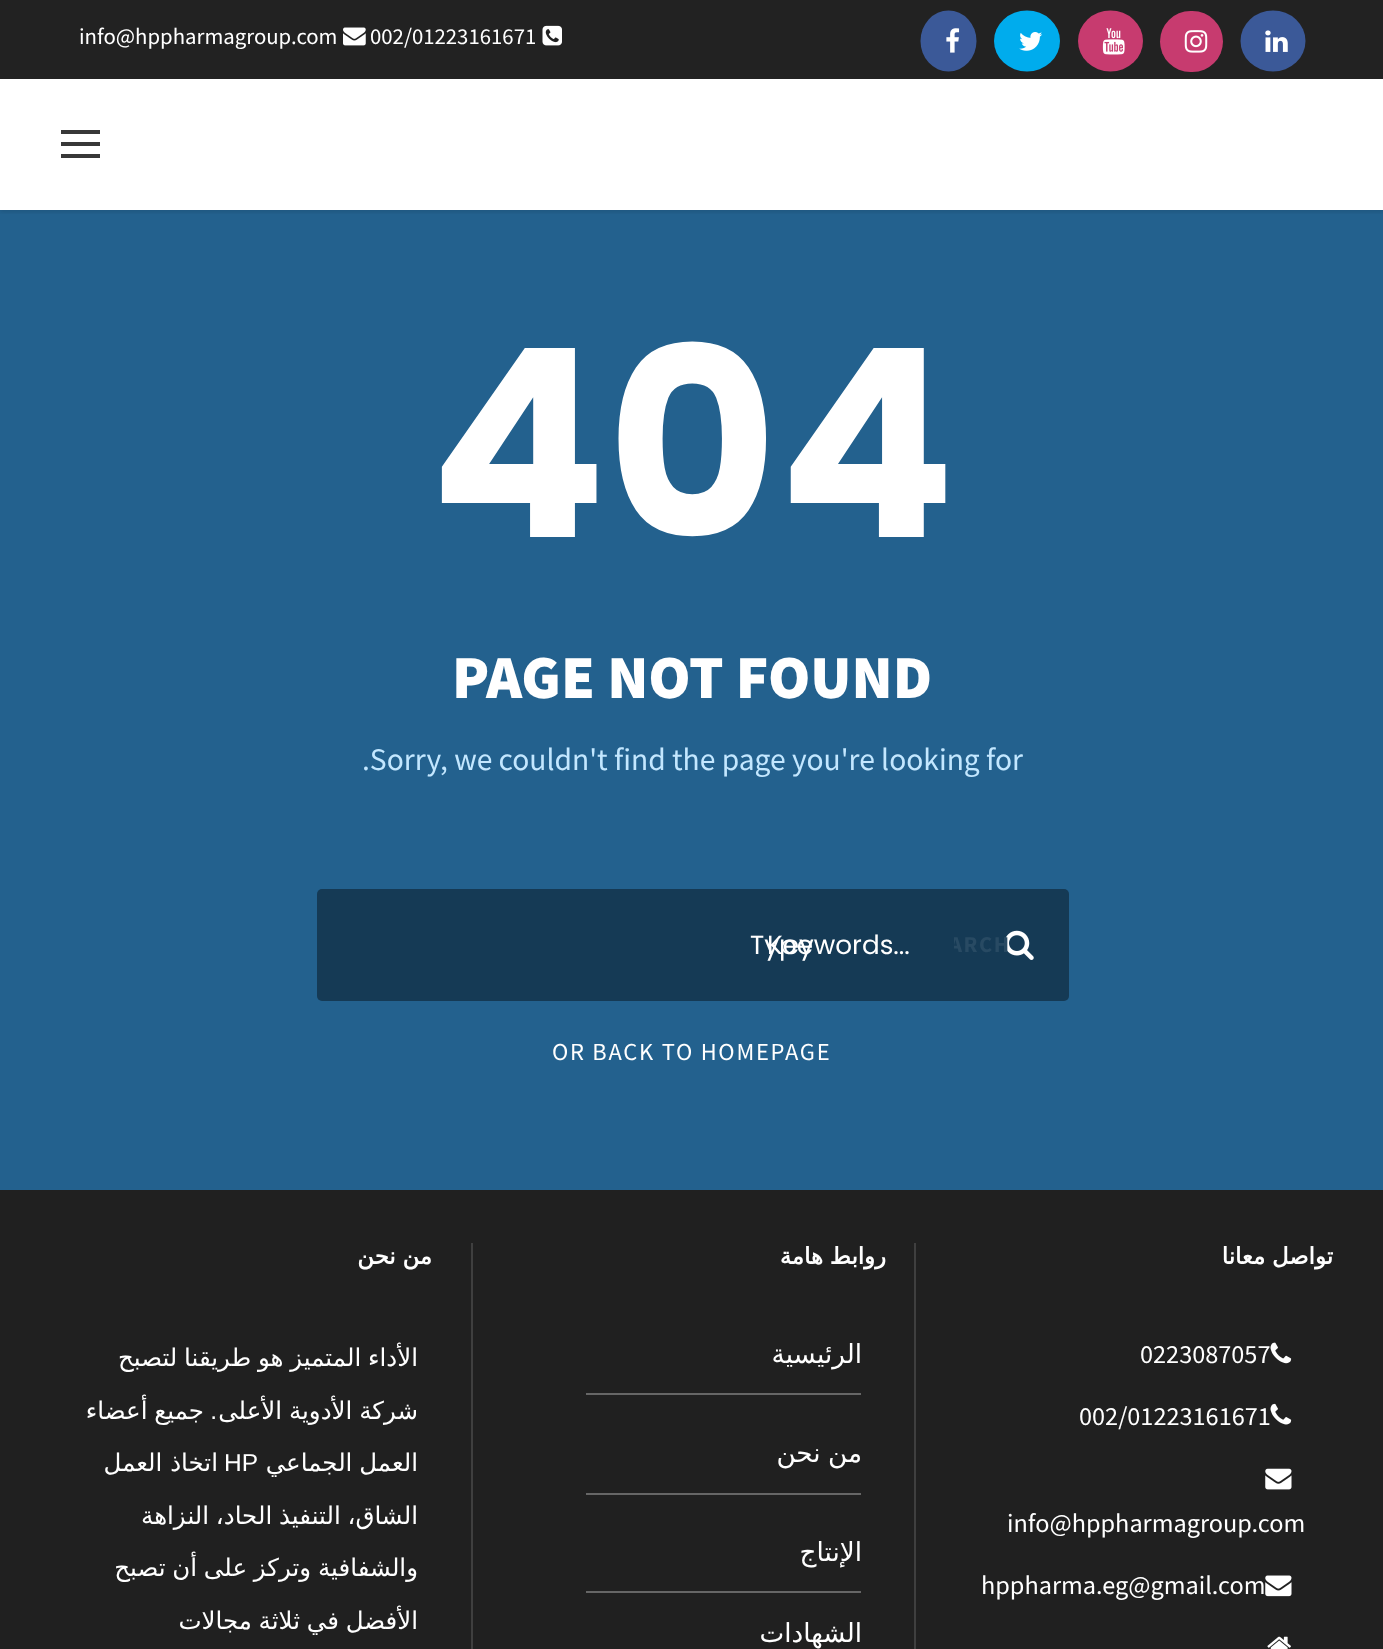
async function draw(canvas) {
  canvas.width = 1383
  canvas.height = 1649
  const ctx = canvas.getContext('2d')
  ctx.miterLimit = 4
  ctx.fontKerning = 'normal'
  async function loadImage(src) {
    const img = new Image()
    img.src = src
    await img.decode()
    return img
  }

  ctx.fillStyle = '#fff'
  ctx.fillRect(0, 0, 1383, 1649)
  ctx.fillStyle = '#222'
  ctx.fillRect(0, 0, 1383, 79)
  ctx.fillStyle = '#3b5998'
  ctx.beginPath()
  ctx.ellipse(1273, 41, 32.5, 30.5, 0, 0, 2 * Math.PI)
  ctx.fill()
  ctx.drawImage(await loadImage('image0.png'), 1265, 30, 23, 22)
  ctx.fillStyle = '#c73b6f'
  ctx.beginPath()
  ctx.roundRect(1160, 11, 63, 61, 30.5)
  ctx.fill()
  ctx.drawImage(await loadImage('image1.png'), 1184, 30, 24, 23)
  ctx.beginPath()
  ctx.ellipse(1110.5, 41, 32.5, 30.5, 0, 0, 2 * Math.PI)
  ctx.fill()
  ctx.drawImage(await loadImage('image2.png'), 1102, 28, 23, 27)
  ctx.fillStyle = '#00aced'
  ctx.beginPath()
  ctx.ellipse(1027, 41, 33, 30.5, 0, 0, 2 * Math.PI)
  ctx.fill()
  ctx.drawImage(await loadImage('image3.png'), 1019, 32, 24, 19)
  ctx.fillStyle = '#3b5998'
  ctx.beginPath()
  ctx.ellipse(948.5, 41, 28, 30.5, 0, 0, 2 * Math.PI)
  ctx.fill()
  ctx.drawImage(await loadImage('image4.png'), 946, 28, 14, 25)
  ctx.drawImage(await loadImage('image5.png'), 542, 25, 20, 21)
  ctx.font = '22.75px Source Sans Pro'
  ctx.fillStyle = '#fff'
  ctx.fillText('002/01223161671', 370, 44)
  ctx.drawImage(await loadImage('image6.png'), 343, 27, 23, 19)
  ctx.fillText('info@hppharmagroup.com', 79, 44)
  ctx.fillStyle = '#23618e'
  ctx.fillRect(0, 210, 1383, 980)
  ctx.save()
  ctx.beginPath()
  ctx.rect(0, 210, 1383, 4)
  ctx.clip()
  ctx.fillStyle = '#0000001a'
  ctx.filter = 'blur(2px)'
  ctx.beginPath()
  ctx.rect(0, 81, 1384, 131)
  ctx.fill()
  ctx.filter = 'none'
  ctx.restore()
  ctx.fillStyle = '#383838'
  ctx.fillRect(61, 130, 39, 4)
  ctx.fillRect(61, 142, 39, 4)
  ctx.fillRect(61, 154, 39, 4)
  ctx.font = 'bold 262.5px Poppins'
  ctx.fillStyle = '#fff'
  ctx.fillText('404', 429, 537)
  ctx.font = '900 61.25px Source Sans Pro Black'
  ctx.fillText('PAGE NOT FOUND', 452, 698)
  ctx.font = '31.5px Source Sans Pro'
  ctx.fillStyle = '#c3e7ff'
  ctx.fillText('.Sorry, we couldn\'t find the page you\'re looking for', 362, 770)
  ctx.fillStyle = '#153a55'
  ctx.beginPath()
  ctx.roundRect(317, 889, 752, 112, 5)
  ctx.fill()
  ctx.drawImage(await loadImage('image7.png'), 1004, 930, 30, 30)
  ctx.save()
  ctx.beginPath()
  ctx.rect(954, 889, 115, 112)
  ctx.clip()
  ctx.letterSpacing = '1.5px'
  ctx.font = 'bold 22.75px Source Sans Pro'
  ctx.fillStyle = '#284a63'
  ctx.fillText('ARCH', 949, 952)
  ctx.restore()
  ctx.font = '26.25px Poppins'
  ctx.fillStyle = '#fff'
  ctx.fillText('Type', 750, 954)
  ctx.fillText('Keywords...', 767, 954)
  ctx.letterSpacing = '1.75px'
  ctx.font = '24.5px Source Sans Pro'
  ctx.fillText('OR BACK TO HOMEPAGE', 552, 1060)
  ctx.fillStyle = '#202020'
  ctx.fillRect(0, 1190, 1383, 459)
  ctx.fillStyle = '#3f3f3f'
  ctx.fillRect(914, 1243, 2, 406)
  ctx.letterSpacing = '2.6px'
  ctx.wordSpacing = '-3px'
  ctx.direction = 'rtl'
  ctx.font = 'bold 22.75px DejaVu Sans'
  ctx.fillStyle = '#fff'
  ctx.fillText('تواصل معانا', 1333, 1264)
  ctx.drawImage(await loadImage('image8.png'), 1270, 1342, 22, 22)
  ctx.letterSpacing = '0px'
  ctx.wordSpacing = '0px'
  ctx.direction = 'ltr'
  ctx.font = '26.25px Source Sans Pro'
  ctx.fillText('0223087057', 1140, 1363)
  ctx.drawImage(await loadImage('image9.png'), 1270, 1403, 22, 22)
  ctx.fillText('002/01223161671', 1079, 1425)
  ctx.drawImage(await loadImage('image10.png'), 1265, 1468, 27, 22)
  ctx.fillText('info@hppharmagroup.com', 1007, 1532)
  ctx.drawImage(await loadImage('image11.png'), 1265, 1575, 27, 22)
  ctx.fillText('hppharma.eg@gmail.com', 981, 1594)
  ctx.drawImage(await loadImage('image12.png'), 1267, 1636, 24, 13)
  ctx.fillStyle = '#3f3f3f'
  ctx.fillRect(471, 1243, 2, 406)
  ctx.letterSpacing = '2.6px'
  ctx.wordSpacing = '-3px'
  ctx.direction = 'rtl'
  ctx.font = 'bold 22.75px DejaVu Sans'
  ctx.fillStyle = '#fff'
  ctx.fillText('روابط هامة', 886, 1264)
  ctx.fillStyle = '#666'
  ctx.fillRect(586, 1393, 275, 2)
  ctx.letterSpacing = '0px'
  ctx.wordSpacing = '0px'
  ctx.font = '26.25px DejaVu Sans'
  ctx.fillStyle = '#fff'
  ctx.fillText('الرئيسية', 862, 1363)
  ctx.fillStyle = '#666'
  ctx.fillRect(586, 1493, 275, 2)
  ctx.wordSpacing = '-1px'
  ctx.fillStyle = '#fff'
  ctx.fillText('من نحن', 862, 1462)
  ctx.fillStyle = '#666'
  ctx.fillRect(586, 1591, 275, 2)
  ctx.wordSpacing = '0px'
  ctx.fillStyle = '#fff'
  ctx.fillText('الإنتاج', 862, 1561)
  ctx.fillText('الشهادات', 862, 1642)
  ctx.letterSpacing = '2.6px'
  ctx.wordSpacing = '-3px'
  ctx.font = 'bold 22.75px DejaVu Sans'
  ctx.fillText('من نحن', 432, 1264)
  ctx.letterSpacing = '0px'
  ctx.wordSpacing = '-1px'
  ctx.font = '24.5px DejaVu Sans'
  ctx.fillText('الأداء المتميز هو طريقنا لتصبح', 418, 1366)
  ctx.fillText('شركة الأدوية الأعلى', 418, 1419)
  ctx.wordSpacing = '0px'
  ctx.font = '24.5px Liberation Sans'
  ctx.fillText('.', 217, 1419)
  ctx.wordSpacing = '-1px'
  ctx.font = '24.5px DejaVu Sans'
  ctx.fillText('جميع أعضاء', 204, 1419)
  ctx.fillText('العمل الجماعي', 418, 1471)
  ctx.wordSpacing = '0px'
  ctx.direction = 'ltr'
  ctx.font = '24.5px Liberation Sans'
  ctx.fillText('HP', 224, 1471)
  ctx.direction = 'rtl'
  ctx.font = '24.5px DejaVu Sans'
  ctx.fillText('اتخاذ العمل', 218, 1471)
  ctx.wordSpacing = '-1px'
  ctx.fillText('الشاق، التنفيذ الحاد، النزاهة', 418, 1524)
  ctx.fillText('والشفافية وتركز على أن تصبح', 418, 1576)
  ctx.fillText('الأفضل في ثلاثة مجالات', 418, 1629)
}

draw(document.querySelector('canvas'))
